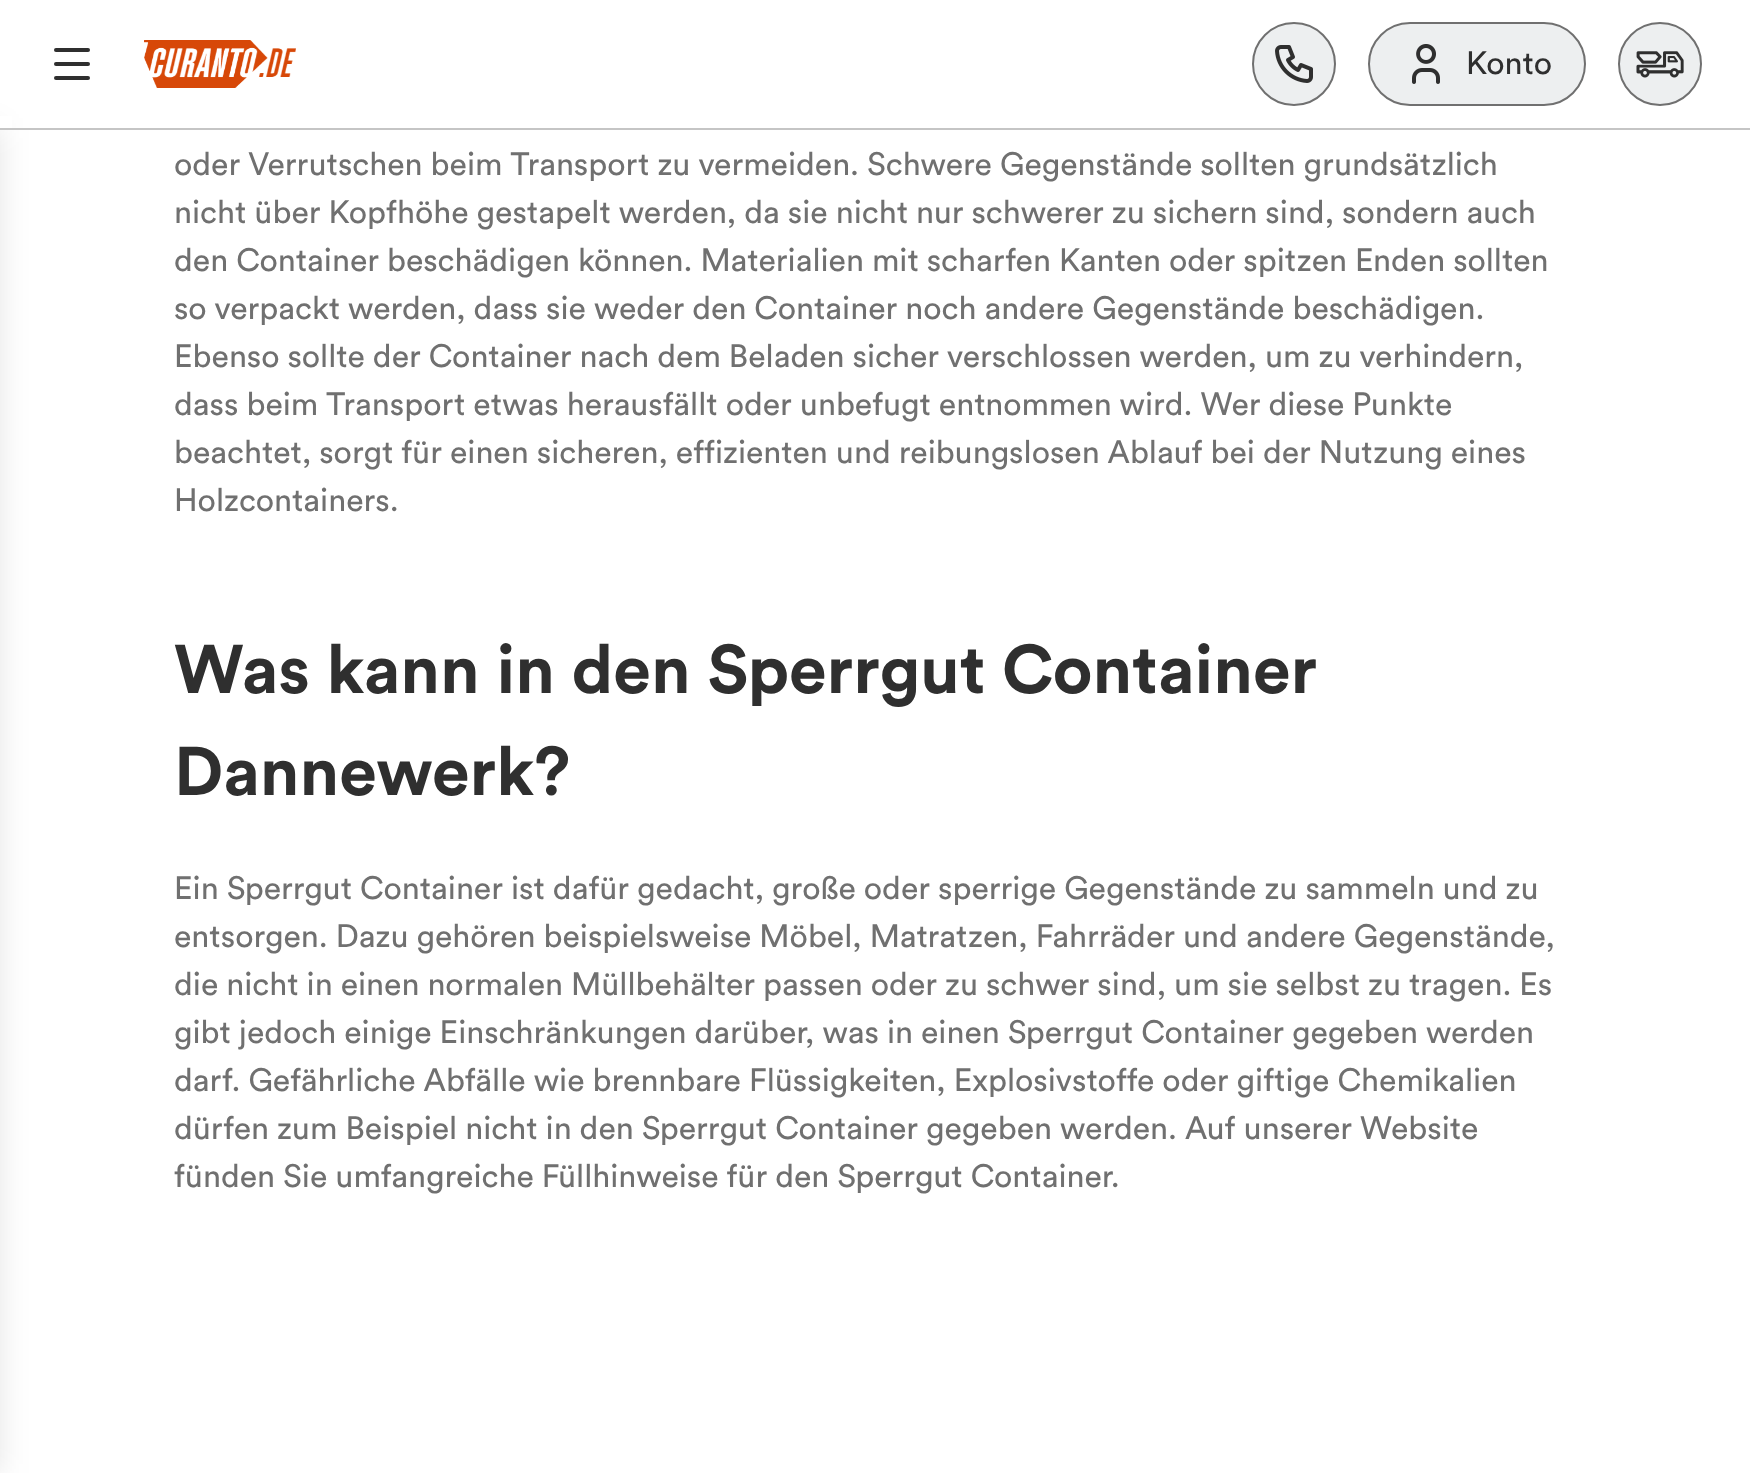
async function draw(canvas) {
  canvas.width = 1750
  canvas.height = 1473
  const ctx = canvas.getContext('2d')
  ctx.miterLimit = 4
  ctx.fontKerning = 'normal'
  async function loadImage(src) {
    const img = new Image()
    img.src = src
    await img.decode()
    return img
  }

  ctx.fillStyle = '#fff'
  ctx.fillRect(0, 0, 1750, 1473)
  ctx.fillStyle = '#0000001a'
  ctx.filter = 'blur(15px)'
  ctx.beginPath()
  ctx.rect(-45, 128, 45, 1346)
  ctx.fill()
  ctx.filter = 'none'
  ctx.fillStyle = '#fff'
  ctx.fillRect(0, 116, 12, 12)
  ctx.fillStyle = '#2f2f2f'
  ctx.beginPath()
  ctx.roundRect(54, 48, 36, 4, 2)
  ctx.fill()
  ctx.beginPath()
  ctx.roundRect(54, 62, 36, 4, 2)
  ctx.fill()
  ctx.beginPath()
  ctx.roundRect(54, 76, 36, 4, 2)
  ctx.fill()
  ctx.drawImage(await loadImage('image0.png'), 144, 40, 152, 48)
  ctx.fillStyle = '#edeff0'
  ctx.beginPath()
  ctx.arc(1294, 64, 41, 0, 2 * Math.PI)
  ctx.fill()
  ctx.strokeStyle = '#707070'
  ctx.lineWidth = 2
  ctx.stroke()
  ctx.drawImage(await loadImage('image1.png'), 1275, 45, 38, 38)
  ctx.beginPath()
  ctx.roundRect(1369, 23, 216, 82, 41)
  ctx.fill()
  ctx.stroke()
  ctx.drawImage(await loadImage('image2.png'), 1412, 44, 28, 40)
  ctx.font = '32px Circular'
  ctx.fillStyle = '#2f2f2f'
  ctx.fillText('Konto', 1466, 74)
  ctx.fillStyle = '#edeff0'
  ctx.beginPath()
  ctx.arc(1660, 64, 41, 0, 2 * Math.PI)
  ctx.fill()
  ctx.stroke()
  ctx.drawImage(await loadImage('image3.png'), 1636, 51, 48, 27)
  ctx.fillStyle = '#c5c5c5'
  ctx.fillRect(0, 128, 1750, 2)
  ctx.fillStyle = '#707070'
  ctx.fillText('oder Verrutschen beim Transport zu vermeiden. Schwere Gegenstände sollten grundsätzlich', 174, 175)
  ctx.fillText('nicht über Kopfhöhe gestapelt werden, da sie nicht nur schwerer zu sichern sind, sondern auch', 174, 223)
  ctx.fillText('den Container beschädigen können. Materialien mit scharfen Kanten oder spitzen Enden sollten', 174, 271)
  ctx.fillText('so verpackt werden, dass sie weder den Container noch andere Gegenstände beschädigen.', 174, 319)
  ctx.fillText('Ebenso sollte der Container nach dem Beladen sicher verschlossen werden, um zu verhindern,', 174, 367)
  ctx.fillText('dass beim Transport etwas herausfällt oder unbefugt entnommen wird. Wer diese Punkte', 174, 415)
  ctx.fillText('beachtet, sorgt für einen sicheren, effizienten und reibungslosen Ablauf bei der Nutzung eines', 174, 463)
  ctx.fillText('Holzcontainers.', 174, 511)
  ctx.font = 'bold 68px Circular'
  ctx.fillStyle = '#2f2f2f'
  ctx.fillText('Was kann in den Sperrgut Container', 174, 693)
  ctx.fillText('Dannewerk?', 174, 795)
  ctx.font = '32px Circular'
  ctx.fillStyle = '#707070'
  ctx.fillText('Ein Sperrgut Container ist dafür gedacht, große oder sperrige Gegenstände zu sammeln und zu', 174, 899)
  ctx.fillText('entsorgen. Dazu gehören beispielsweise Möbel, Matratzen, Fahrräder und andere Gegenstände,', 174, 947)
  ctx.fillText('die nicht in einen normalen Müllbehälter passen oder zu schwer sind, um sie selbst zu tragen. Es', 174, 995)
  ctx.fillText('gibt jedoch einige Einschränkungen darüber, was in einen Sperrgut Container gegeben werden', 174, 1043)
  ctx.fillText('darf. Gefährliche Abfälle wie brennbare Flüssigkeiten, Explosivstoffe oder giftige Chemikalien', 174, 1091)
  ctx.fillText('dürfen zum Beispiel nicht in den Sperrgut Container gegeben werden. Auf unserer Website', 174, 1139)
  ctx.fillText('fünden Sie umfangreiche Füllhinweise für den Sperrgut Container.', 174, 1187)
}

draw(document.querySelector('canvas'))
